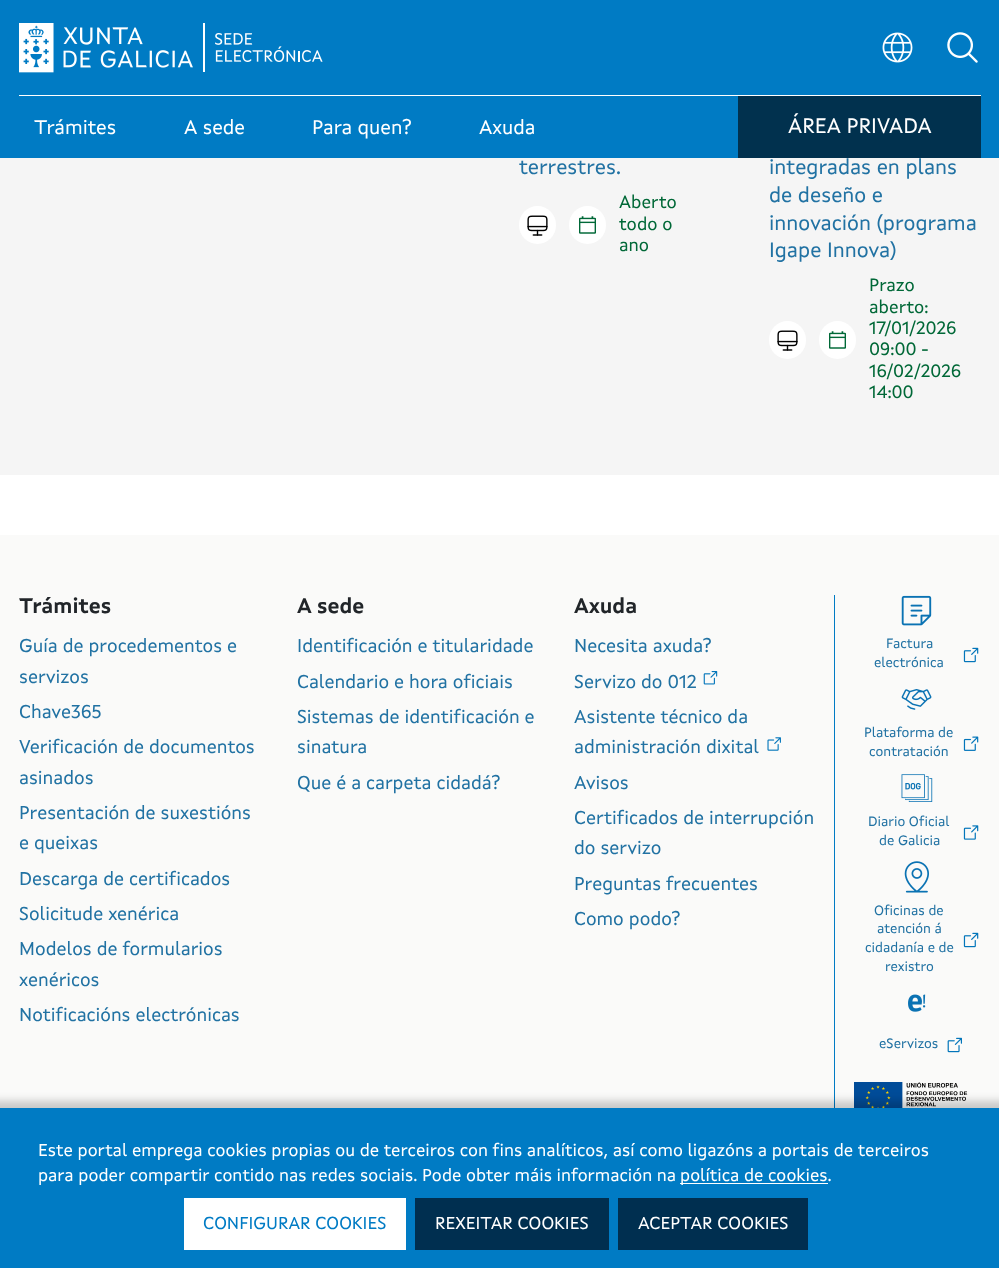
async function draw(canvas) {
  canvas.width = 999
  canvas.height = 1268
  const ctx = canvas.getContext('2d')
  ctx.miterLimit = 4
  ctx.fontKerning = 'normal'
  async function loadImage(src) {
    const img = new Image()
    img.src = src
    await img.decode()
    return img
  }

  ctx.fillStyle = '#fff'
  ctx.fillRect(0, 0, 999, 1268)
  ctx.fillStyle = '#007bc4'
  ctx.fillRect(0, 0, 999, 158)
  ctx.drawImage(await loadImage('image0.png'), 19, 23, 304, 50)
  ctx.drawImage(await loadImage('image1.png'), 882, 32, 31, 31)
  ctx.drawImage(await loadImage('image2.png'), 947, 32, 31, 31)
  ctx.fillStyle = '#fff'
  ctx.fillRect(19, 95, 962, 1)
  ctx.font = '20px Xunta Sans'
  ctx.fillText('Trámites', 34, 134)
  ctx.fillText('A sede', 184, 134)
  ctx.fillText('Para quen?', 312, 134)
  ctx.fillText('Axuda', 479, 134)
  ctx.fillStyle = '#01314e'
  ctx.fillRect(738, 96, 243, 62)
  ctx.font = '21.25px Xunta Sans'
  ctx.fillStyle = '#fff'
  ctx.fillText('ÁREA PRIVADA', 788, 133)
  ctx.fillStyle = '#f5f5f5'
  ctx.fillRect(0, 158, 999, 317)
  ctx.font = '21px Xunta Sans'
  ctx.fillStyle = '#2172a3'
  ctx.fillText('terrestres.', 519, 174)
  ctx.fillStyle = '#fff'
  ctx.beginPath()
  ctx.roundRect(519, 206, 37, 38, 18.5)
  ctx.fill()
  ctx.drawImage(await loadImage('image3.png'), 527, 215, 21, 21)
  ctx.font = '18px Xunta Sans'
  ctx.fillStyle = '#006837'
  ctx.fillText('Aberto', 619, 208)
  ctx.fillStyle = '#fff'
  ctx.beginPath()
  ctx.roundRect(569, 206, 37, 38, 18.5)
  ctx.fill()
  ctx.drawImage(await loadImage('image4.png'), 579, 216, 17, 18)
  ctx.fillStyle = '#006837'
  ctx.fillText('todo o', 619, 230)
  ctx.fillText('ano', 619, 251)
  ctx.font = '21px Xunta Sans'
  ctx.fillStyle = '#2172a3'
  ctx.fillText('integradas en plans', 769, 174)
  ctx.fillText('de deseño e', 769, 202)
  ctx.fillText('innovación (programa', 769, 230)
  ctx.fillText('Igape Innova)', 769, 257)
  ctx.fillStyle = '#fff'
  ctx.beginPath()
  ctx.roundRect(769, 321, 37, 38, 18.5)
  ctx.fill()
  ctx.drawImage(await loadImage('image3.png'), 777, 330, 21, 21)
  ctx.font = '18px Xunta Sans'
  ctx.fillStyle = '#006837'
  ctx.fillText('Prazo', 869, 291)
  ctx.fillText('aberto:', 869, 313)
  ctx.fillStyle = '#fff'
  ctx.beginPath()
  ctx.roundRect(819, 321, 37, 38, 18.5)
  ctx.fill()
  ctx.drawImage(await loadImage('image4.png'), 829, 331, 17, 18)
  ctx.fillStyle = '#006837'
  ctx.fillText('17/01/2026', 869, 334)
  ctx.fillText('09:00 -', 869, 355)
  ctx.fillText('16/02/2026', 869, 377)
  ctx.fillText('14:00', 869, 398)
  ctx.fillStyle = '#fafaf9'
  ctx.fillRect(0, 535, 999, 573)
  ctx.font = 'bold 21px Xunta Sans'
  ctx.fillStyle = '#212529'
  ctx.fillText('Trámites', 19, 613)
  ctx.font = '18.75px Xunta Sans'
  ctx.fillStyle = '#2172a3'
  ctx.fillText('Guía de procedementos e', 19, 652)
  ctx.fillText('servizos', 19, 683)
  ctx.fillText('Chave365', 19, 718)
  ctx.fillText('Verificación de documentos', 19, 753)
  ctx.fillText('asinados', 19, 784)
  ctx.fillText('Presentación de suxestións', 19, 819)
  ctx.fillText('e queixas', 19, 849)
  ctx.fillText('Descarga de certificados', 19, 885)
  ctx.fillText('Solicitude xenérica', 19, 920)
  ctx.fillText('Modelos de formularios', 19, 955)
  ctx.fillText('xenéricos', 19, 986)
  ctx.fillText('Notificacións electrónicas', 19, 1021)
  ctx.font = 'bold 21px Xunta Sans'
  ctx.fillStyle = '#212529'
  ctx.fillText('A sede', 297, 613)
  ctx.font = '18.75px Xunta Sans'
  ctx.fillStyle = '#2172a3'
  ctx.fillText('Identificación e titularidade', 297, 652)
  ctx.fillText('Calendario e hora oficiais', 297, 688)
  ctx.fillText('Sistemas de identificación e', 297, 723)
  ctx.fillText('sinatura', 297, 753)
  ctx.fillText('Que é a carpeta cidadá?', 297, 789)
  ctx.font = 'bold 21px Xunta Sans'
  ctx.fillStyle = '#212529'
  ctx.fillText('Axuda', 574, 613)
  ctx.font = '18.75px Xunta Sans'
  ctx.fillStyle = '#2172a3'
  ctx.fillText('Necesita axuda?', 574, 652)
  ctx.fillText('Servizo do 012', 574, 688)
  ctx.drawImage(await loadImage('image5.png'), 703, 671, 15, 14)
  ctx.fillText('Asistente técnico da', 574, 723)
  ctx.fillText('administración dixital', 574, 753)
  ctx.drawImage(await loadImage('image6.png'), 767, 737, 14, 14)
  ctx.fillText('Avisos', 574, 789)
  ctx.fillText('Certificados de interrupción', 574, 824)
  ctx.fillText('do servizo', 574, 854)
  ctx.fillText('Preguntas frecuentes', 574, 890)
  ctx.fillText('Como podo?', 574, 925)
  ctx.fillStyle = '#007bc4'
  ctx.fillRect(834, 595, 1, 513)
  ctx.drawImage(await loadImage('image7.png'), 901, 595, 31, 31)
  ctx.font = '13.75px Xunta Sans'
  ctx.fillStyle = '#2172a3'
  ctx.fillText('Factura', 886, 648)
  ctx.fillText('electrónica', 874, 667)
  ctx.drawImage(await loadImage('image8.png'), 963, 647, 16, 16)
  ctx.drawImage(await loadImage('image9.png'), 901, 689, 31, 21)
  ctx.fillText('Plataforma de', 864, 737)
  ctx.fillText('contratación', 869, 756)
  ctx.drawImage(await loadImage('image10.png'), 963, 736, 16, 15)
  ctx.drawImage(await loadImage('image11.png'), 901, 774, 32, 28)
  ctx.fillText('Diario Oficial', 868, 826)
  ctx.fillText('de Galicia', 879, 845)
  ctx.drawImage(await loadImage('image12.png'), 963, 825, 16, 15)
  ctx.drawImage(await loadImage('image13.png'), 904, 861, 25, 32)
  ctx.fillText('Oficinas de', 874, 915)
  ctx.fillText('atención á', 877, 933)
  ctx.fillText('cidadanía e de', 865, 952)
  ctx.drawImage(await loadImage('image8.png'), 963, 932, 16, 16)
  ctx.fillText('rexistro', 885, 971)
  ctx.drawImage(await loadImage('image14.png'), 908, 994, 18, 18)
  ctx.fillText('eServizos', 879, 1048)
  ctx.drawImage(await loadImage('image15.png'), 947, 1037, 15, 16)
  ctx.drawImage(await loadImage('image16.png'), 854, 1082, 114, 26)
  ctx.fillStyle = '#00000033'
  ctx.filter = 'blur(4px)'
  ctx.beginPath()
  ctx.rect(-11, 1101, 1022, 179)
  ctx.fill()
  ctx.filter = 'none'
  ctx.fillStyle = '#007bc4'
  ctx.fillRect(0, 1108, 999, 160)
  ctx.font = '17.5px Xunta Sans'
  ctx.fillStyle = '#fff'
  ctx.fillText('Este portal emprega cookies propias ou de terceiros con fins analíticos, así como ligazóns a portais de terceiros', 38, 1156)
  ctx.fillText('para poder compartir contido nas redes sociais. Pode obter máis información na', 38, 1181)
  ctx.fillRect(680, 1183, 148, 1)
  ctx.fillText('política de cookies.', 680, 1181)
  ctx.fillRect(184, 1198, 222, 52)
  ctx.fillStyle = '#007bc4'
  ctx.fillText('CONFIGURAR COOKIES', 203, 1229)
  ctx.fillStyle = '#002f50'
  ctx.fillRect(415, 1198, 194, 52)
  ctx.fillStyle = '#fff'
  ctx.fillText('REXEITAR COOKIES', 435, 1229)
  ctx.fillStyle = '#002f50'
  ctx.fillRect(618, 1198, 190, 52)
  ctx.fillStyle = '#fff'
  ctx.fillText('ACEPTAR COOKIES', 638, 1229)
}

draw(document.querySelector('canvas'))
